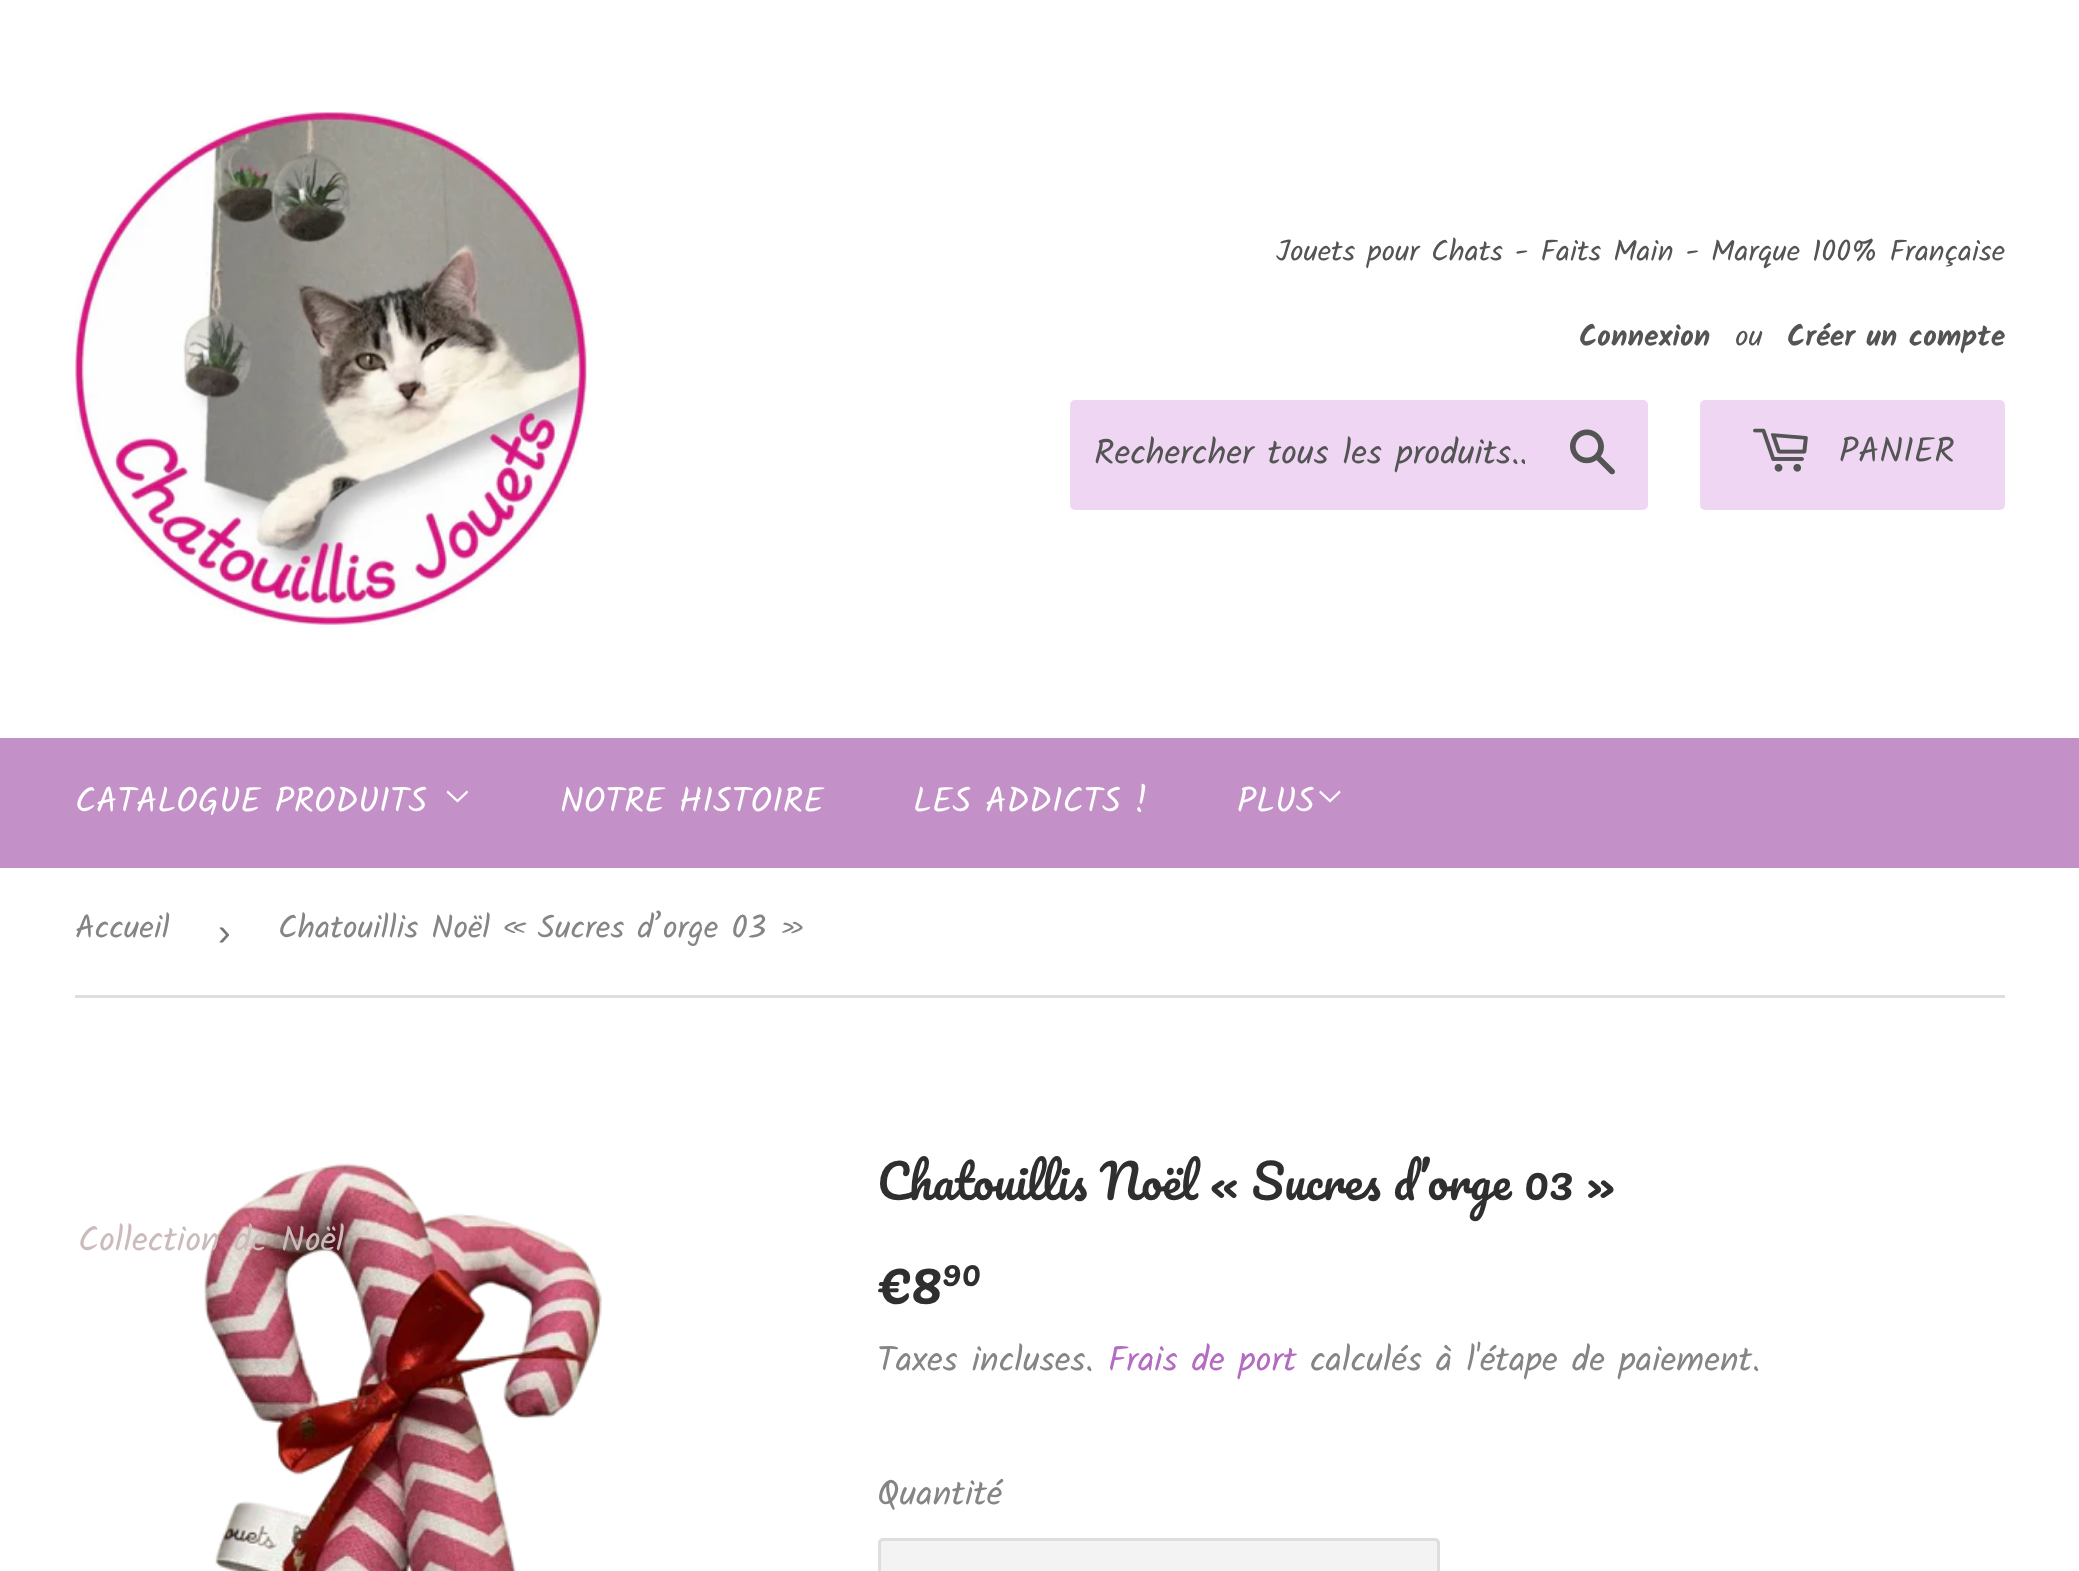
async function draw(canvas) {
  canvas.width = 2079
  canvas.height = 1571
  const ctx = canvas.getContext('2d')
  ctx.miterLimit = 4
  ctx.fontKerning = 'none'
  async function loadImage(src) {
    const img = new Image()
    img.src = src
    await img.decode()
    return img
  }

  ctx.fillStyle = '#fff'
  ctx.fillRect(0, 0, 2079, 1571)
  ctx.drawImage(await loadImage('image0.png'), 75, 112, 512, 513)
  ctx.font = '29.75px Kalam'
  ctx.fillStyle = '#545454'
  ctx.fillText('Jouets pour Chats - Faits Main - Marque 100% Française', 1276, 261)
  ctx.font = 'bold 29.75px Kalam'
  ctx.fillText('Connexion', 1579, 346)
  ctx.font = '29.75px Kalam'
  ctx.fillText('ou', 1735, 346)
  ctx.font = 'bold 29.75px Kalam'
  ctx.fillText('Créer un compte', 1787, 346)
  ctx.fillStyle = '#efd7f4'
  ctx.beginPath()
  ctx.roundRect(1070, 400, 578, 110, 5)
  ctx.fill()
  ctx.save()
  ctx.beginPath()
  ctx.rect(1095, 428, 430, 55)
  ctx.clip()
  ctx.font = '35px Kalam'
  ctx.fillStyle = '#545454'
  ctx.fillText('Rechercher tous les produits..', 1094, 464)
  ctx.restore()
  ctx.drawImage(await loadImage('image1.png'), 1570, 429, 45, 46)
  ctx.beginPath()
  ctx.roundRect(1700, 400, 305, 110, 5)
  ctx.fill()
  ctx.drawImage(await loadImage('image2.png'), 1753, 428, 55, 44)
  ctx.font = '35px Kalam'
  ctx.fillStyle = '#545454'
  ctx.fillText('PANIER', 1839, 462)
  ctx.fillStyle = '#c390c7'
  ctx.fillRect(0, 738, 2079, 130)
  ctx.fillStyle = '#fff'
  ctx.fillText('CATALOGUE PRODUITS', 75, 812)
  ctx.drawImage(await loadImage('image3.png'), 446, 790, 22, 13)
  ctx.drawImage(await loadImage('image5.png'), 204, 1163, 398, 408)
  ctx.fillStyle = '#cbb'
  ctx.fillText('Collection de Noël', 78, 1251)
  ctx.fillStyle = '#fff'
  ctx.fillText('NOTRE HISTOIRE', 560, 812)
  ctx.fillText('LES ADDICTS !', 913, 812)
  ctx.fillText('PLUS', 1237, 812)
  ctx.drawImage(await loadImage('image4.png'), 1319, 790, 22, 13)
  ctx.fillStyle = '#dedede'
  ctx.fillRect(75, 995, 1930, 3)
  ctx.font = '32.5px Kalam'
  ctx.fillStyle = '#858585'
  ctx.fillText('Accueil', 75, 938)
  ctx.font = '38px Liberation Sans'
  ctx.fillStyle = '#767676'
  ctx.fillText('›', 218, 945)
  ctx.font = '32.5px Kalam'
  ctx.fillStyle = '#858585'
  ctx.fillText('Chatouillis Noël « Sucres d’orge 03 »', 278, 938)
  ctx.wordSpacing = '0.25px'
  ctx.font = '46.7px Pacifico'
  ctx.fillStyle = '#2f2f2f'
  ctx.fillText('Chatouillis Noël « Sucres d’orge 03 »', 877, 1200)
  ctx.wordSpacing = '0px'
  ctx.font = '61px Pacifico'
  ctx.fillText('€8', 877, 1304)
  ctx.font = '36px Pacifico'
  ctx.fillText('90', 942, 1286)
  ctx.font = '35px Kalam'
  ctx.fillStyle = '#858585'
  ctx.fillText('Taxes incluses.', 877, 1371)
  ctx.fillStyle = '#b36cc1'
  ctx.fillText('Frais de port', 1108, 1371)
  ctx.fillStyle = '#858585'
  ctx.fillText('calculés à l\'étape de paiement.', 1310, 1371)
  ctx.fillText('Quantité', 877, 1505)
  ctx.fillStyle = '#f3f3f3'
  ctx.beginPath()
  ctx.roundRect(879.5, 1539.5, 559, 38, 3.5)
  ctx.fill()
  ctx.strokeStyle = '#dedede'
  ctx.lineWidth = 3
  ctx.stroke()
}

draw(document.querySelector('canvas'))
